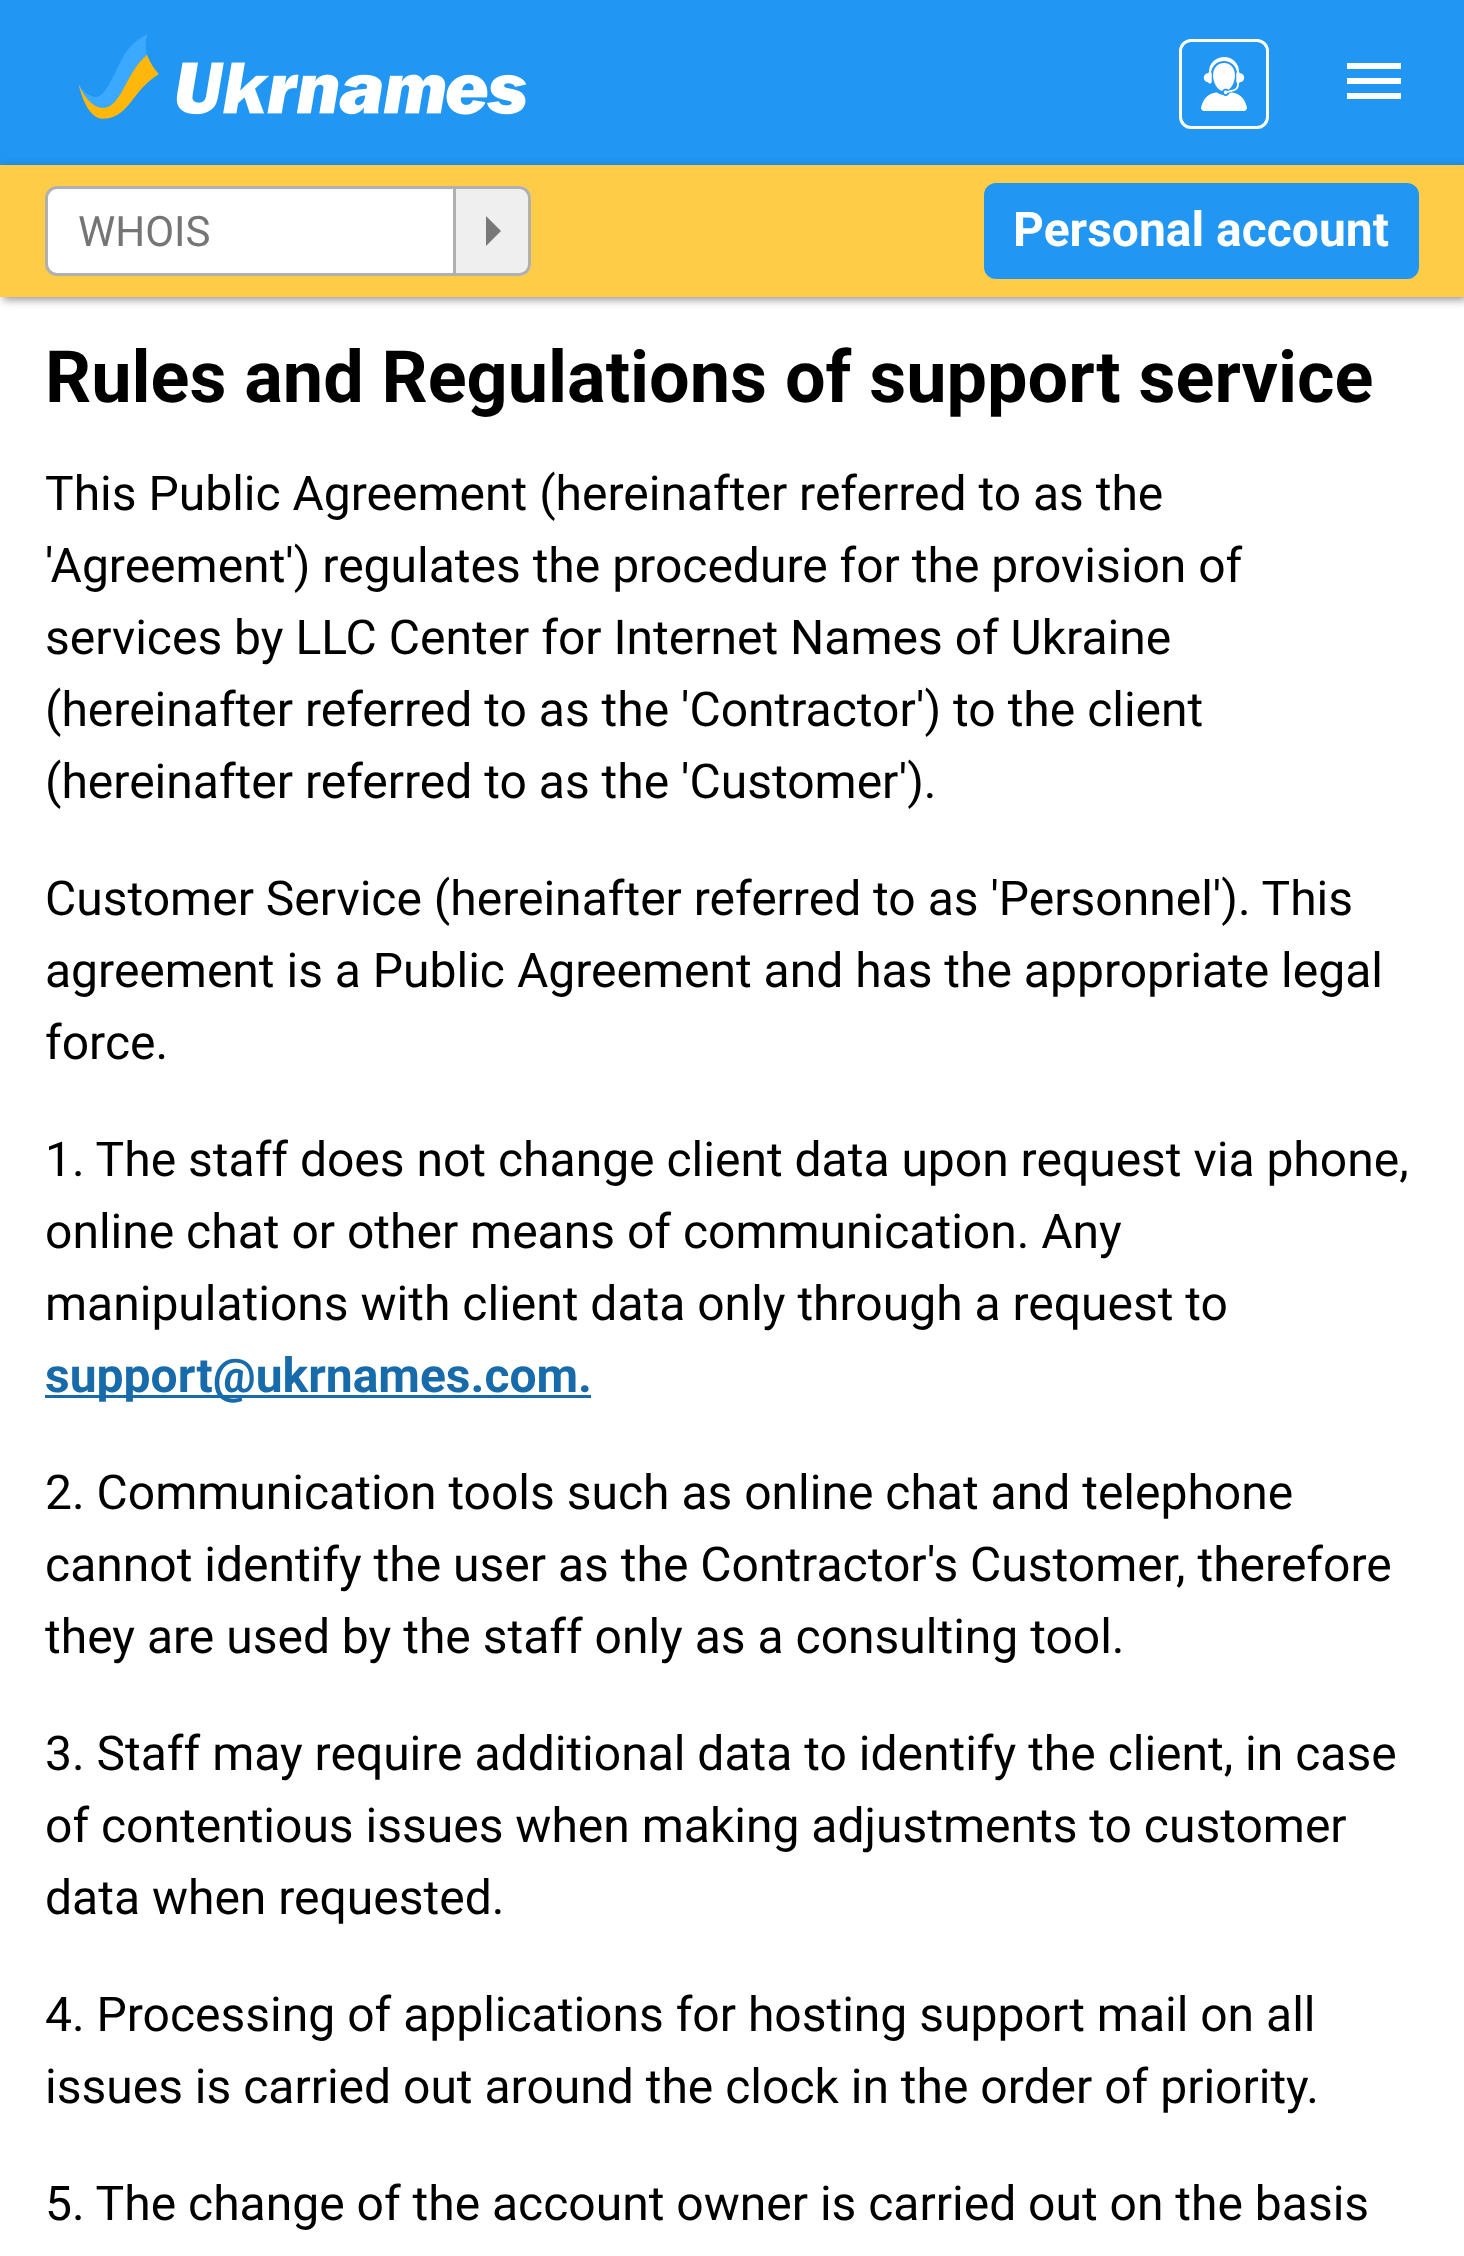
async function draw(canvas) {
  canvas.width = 1464
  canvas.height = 2256
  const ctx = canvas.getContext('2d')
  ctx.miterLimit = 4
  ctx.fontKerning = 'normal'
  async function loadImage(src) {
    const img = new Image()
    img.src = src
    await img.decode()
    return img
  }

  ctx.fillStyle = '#fff'
  ctx.fillRect(0, 0, 1464, 2256)
  ctx.fillStyle = '#2196f3'
  ctx.fillRect(0, 0, 1464, 165)
  ctx.drawImage(await loadImage('image0.png'), 78, 34, 449, 85)
  ctx.beginPath()
  ctx.roundRect(1180.5, 40.5, 87, 87, 10.5)
  ctx.strokeStyle = '#fff'
  ctx.lineWidth = 3
  ctx.stroke()
  ctx.drawImage(await loadImage('image1.png'), 1201, 57, 46, 54)
  ctx.fillStyle = '#fff'
  ctx.fillRect(1347, 63, 54, 6)
  ctx.fillRect(1347, 78, 54, 6)
  ctx.fillRect(1347, 93, 54, 6)
  ctx.fillStyle = '#00000066'
  ctx.filter = 'blur(4.5px)'
  ctx.beginPath()
  ctx.rect(3, 168, 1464, 132)
  ctx.fill()
  ctx.filter = 'none'
  ctx.fillStyle = '#ffcc47'
  ctx.fillRect(0, 165, 1464, 132)
  ctx.fillStyle = '#fff'
  ctx.beginPath()
  ctx.roundRect(46.5, 187.5, 408, 87, [10.5, 0, 0, 10.5])
  ctx.fill()
  ctx.strokeStyle = '#b0b0b0'
  ctx.stroke()
  ctx.font = '42px Roboto'
  ctx.fillStyle = '#757575'
  ctx.fillText('WHOIS', 78, 246)
  ctx.fillStyle = '#efefef'
  ctx.beginPath()
  ctx.roundRect(456, 186, 75, 90, [0, 12, 12, 0])
  ctx.fill()
  ctx.fillStyle = '#b0b0b0'
  ctx.beginPath()
  ctx.moveTo(456, 186)
  ctx.lineTo(519, 186)
  ctx.bezierCurveTo(526, 186, 531, 191, 531, 198)
  ctx.lineTo(531, 264)
  ctx.bezierCurveTo(531, 271, 526, 276, 519, 276)
  ctx.lineTo(456, 276)
  ctx.closePath()
  ctx.moveTo(456, 189)
  ctx.lineTo(519, 189)
  ctx.bezierCurveTo(524, 189, 528, 193, 528, 198)
  ctx.lineTo(528, 264)
  ctx.bezierCurveTo(528, 269, 524, 273, 519, 273)
  ctx.lineTo(456, 273)
  ctx.closePath()
  ctx.fill('evenodd')
  ctx.fillStyle = '#787878'
  ctx.beginPath()
  ctx.moveTo(486, 246)
  ctx.lineTo(486, 216)
  ctx.lineTo(501, 231)
  ctx.closePath()
  ctx.fill()
  ctx.fillStyle = '#2196f3'
  ctx.beginPath()
  ctx.roundRect(984, 183, 435, 96, 12)
  ctx.fill()
  ctx.font = 'bold 48px Roboto'
  ctx.fillStyle = '#fff'
  ctx.fillText('Personal account', 1013, 246)
  ctx.font = 'bold 72px Roboto'
  ctx.fillStyle = '#000'
  ctx.fillText('Rules and Regulations of support service', 45, 402)
  ctx.font = '48px Roboto'
  ctx.fillText('This Public Agreement (hereinafter referred to as the', 45, 510)
  ctx.fillText('\'Agreement\') regulates the procedure for the provision of', 45, 582)
  ctx.fillText('services by LLC Center for Internet Names of Ukraine', 45, 654)
  ctx.fillText('(hereinafter referred to as the \'Contractor\') to the client', 45, 726)
  ctx.fillText('(hereinafter referred to as the \'Customer\').', 45, 798)
  ctx.fillText('Customer Service (hereinafter referred to as \'Personnel\'). This', 45, 915)
  ctx.fillText('agreement is a Public Agreement and has the appropriate legal', 45, 987)
  ctx.fillText('force.', 45, 1059)
  ctx.fillText('1. The staff does not change client data upon request via phone,', 45, 1176)
  ctx.fillText('online chat or other means of communication. Any', 45, 1248)
  ctx.fillText('manipulations with client data only through a request to', 45, 1320)
  ctx.fillStyle = '#186bab'
  ctx.fillRect(45, 1395, 546, 3)
  ctx.font = 'bold 48px Roboto'
  ctx.fillText('support@ukrnames.com.', 45, 1392)
  ctx.font = '48px Roboto'
  ctx.fillStyle = '#000'
  ctx.fillText('2. Communication tools such as online chat and telephone', 45, 1509)
  ctx.fillText('cannot identify the user as the Contractor\'s Customer, therefore', 45, 1581)
  ctx.fillText('they are used by the staff only as a consulting tool.', 45, 1653)
  ctx.fillText('3. Staff may require additional data to identify the client, in case', 45, 1770)
  ctx.fillText('of contentious issues when making adjustments to customer', 45, 1842)
  ctx.fillText('data when requested.', 45, 1914)
  ctx.fillText('4. Processing of applications for hosting support mail on all', 45, 2031)
  ctx.fillText('issues is carried out around the clock in the order of priority.', 45, 2103)
  ctx.fillText('5. The change of the account owner is carried out on the basis', 45, 2220)
}

draw(document.querySelector('canvas'))
